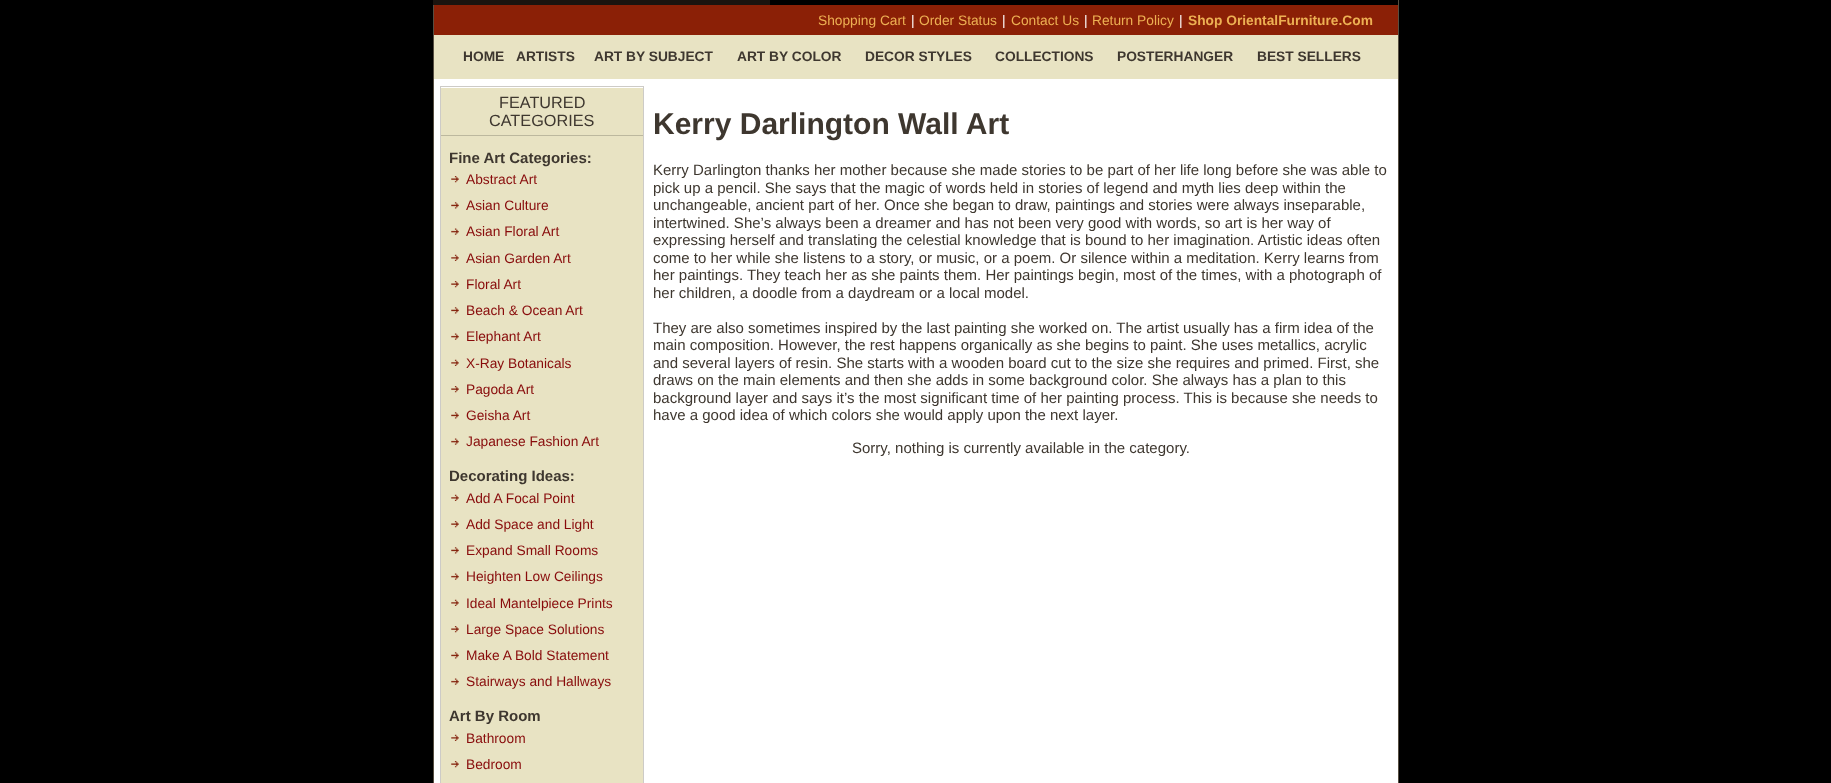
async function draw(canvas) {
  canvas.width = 1831
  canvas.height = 783
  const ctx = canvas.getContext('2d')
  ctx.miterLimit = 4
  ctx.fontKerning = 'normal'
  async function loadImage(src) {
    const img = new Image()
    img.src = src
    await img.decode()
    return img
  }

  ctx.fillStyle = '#000'
  ctx.fillRect(0, 0, 1831, 783)
  ctx.fillStyle = '#fff'
  ctx.fillRect(434, 79, 964, 704)
  ctx.strokeStyle = '#564e41'
  ctx.strokeRect(433.5, -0.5, 965, 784)
  ctx.fillStyle = '#1b140f'
  ctx.fillRect(433, 0, 337, 5)
  ctx.fillStyle = '#8b2006'
  ctx.fillRect(434, 5, 964, 30)
  ctx.font = '13.75px Liberation Sans'
  ctx.fillStyle = '#edb053'
  ctx.fillText('Shopping Cart', 818, 25)
  ctx.fillStyle = '#fff'
  ctx.fillText('|', 911, 25)
  ctx.fillStyle = '#edb053'
  ctx.fillText('Order Status', 919, 25)
  ctx.fillStyle = '#fff'
  ctx.fillText('|', 1002, 25)
  ctx.fillStyle = '#edb053'
  ctx.fillText('Contact Us', 1011, 25)
  ctx.fillStyle = '#fff'
  ctx.fillText('|', 1084, 25)
  ctx.fillStyle = '#edb053'
  ctx.fillText('Return Policy', 1092, 25)
  ctx.fillStyle = '#fff'
  ctx.fillText('|', 1179, 25)
  ctx.font = 'bold 13.75px Liberation Sans'
  ctx.fillStyle = '#edb053'
  ctx.fillText('Shop OrientalFurniture.Com', 1188, 25)
  ctx.fillStyle = '#e8e3c3'
  ctx.fillRect(434, 35, 964, 44)
  ctx.fillStyle = '#3e372f'
  ctx.fillText('HOME', 463, 61)
  ctx.fillText('ARTISTS', 516, 61)
  ctx.fillText('ART BY SUBJECT', 594, 61)
  ctx.fillText('ART BY COLOR', 737, 61)
  ctx.fillText('DECOR STYLES', 865, 61)
  ctx.fillText('COLLECTIONS', 995, 61)
  ctx.fillText('POSTERHANGER', 1117, 61)
  ctx.fillText('BEST SELLERS', 1257, 61)
  ctx.strokeStyle = '#cdcbc7'
  ctx.strokeRect(440.5, 86.5, 203, 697)
  ctx.fillStyle = '#e8e3c3'
  ctx.fillRect(441, 88, 202, 47)
  ctx.font = '16.25px Liberation Sans'
  ctx.fillStyle = '#3e372f'
  ctx.fillText('FEATURED', 499, 108)
  ctx.fillText('CATEGORIES', 489, 126)
  ctx.fillStyle = '#e8e3c3'
  ctx.fillRect(441, 136, 202, 647)
  ctx.fillStyle = '#bcb89e'
  ctx.fillRect(441, 135, 202, 1)
  ctx.font = 'bold 15px Liberation Sans'
  ctx.fillStyle = '#3e372f'
  ctx.fillText('Fine Art Categories:', 449, 163)
  ctx.drawImage(await loadImage('image0.png'), 451, 176, 8, 7)
  ctx.font = '13.75px Liberation Sans'
  ctx.fillStyle = '#880b0b'
  ctx.fillText('Abstract Art', 466, 184)
  ctx.drawImage(await loadImage('image1.png'), 451, 202, 8, 7)
  ctx.fillText('Asian Culture', 466, 210)
  ctx.drawImage(await loadImage('image2.png'), 451, 228, 8, 7)
  ctx.fillText('Asian Floral Art', 466, 236)
  ctx.drawImage(await loadImage('image3.png'), 451, 254, 8, 7)
  ctx.fillText('Asian Garden Art', 466, 263)
  ctx.drawImage(await loadImage('image0.png'), 451, 281, 8, 7)
  ctx.fillText('Floral Art', 466, 289)
  ctx.drawImage(await loadImage('image1.png'), 451, 307, 8, 7)
  ctx.fillText('Beach & Ocean Art', 466, 315)
  ctx.drawImage(await loadImage('image2.png'), 451, 333, 8, 7)
  ctx.fillText('Elephant Art', 466, 341)
  ctx.drawImage(await loadImage('image3.png'), 451, 359, 8, 7)
  ctx.fillText('X-Ray Botanicals', 466, 368)
  ctx.drawImage(await loadImage('image0.png'), 451, 386, 8, 7)
  ctx.fillText('Pagoda Art', 466, 394)
  ctx.drawImage(await loadImage('image1.png'), 451, 412, 8, 7)
  ctx.fillText('Geisha Art', 466, 420)
  ctx.drawImage(await loadImage('image2.png'), 451, 438, 8, 7)
  ctx.fillText('Japanese Fashion Art', 466, 446)
  ctx.font = 'bold 15px Liberation Sans'
  ctx.fillStyle = '#3e372f'
  ctx.fillText('Decorating Ideas:', 449, 481)
  ctx.drawImage(await loadImage('image3.png'), 451, 494, 8, 7)
  ctx.font = '13.75px Liberation Sans'
  ctx.fillStyle = '#880b0b'
  ctx.fillText('Add A Focal Point', 466, 503)
  ctx.drawImage(await loadImage('image0.png'), 451, 521, 8, 7)
  ctx.fillText('Add Space and Light', 466, 529)
  ctx.drawImage(await loadImage('image1.png'), 451, 547, 8, 7)
  ctx.fillText('Expand Small Rooms', 466, 555)
  ctx.drawImage(await loadImage('image2.png'), 451, 573, 8, 7)
  ctx.fillText('Heighten Low Ceilings', 466, 581)
  ctx.drawImage(await loadImage('image3.png'), 451, 599, 8, 7)
  ctx.fillText('Ideal Mantelpiece Prints', 466, 608)
  ctx.drawImage(await loadImage('image0.png'), 451, 626, 8, 7)
  ctx.fillText('Large Space Solutions', 466, 634)
  ctx.drawImage(await loadImage('image1.png'), 451, 652, 8, 7)
  ctx.fillText('Make A Bold Statement', 466, 660)
  ctx.drawImage(await loadImage('image2.png'), 451, 678, 8, 7)
  ctx.fillText('Stairways and Hallways', 466, 686)
  ctx.font = 'bold 15px Liberation Sans'
  ctx.fillStyle = '#3e372f'
  ctx.fillText('Art By Room', 449, 721)
  ctx.drawImage(await loadImage('image3.png'), 451, 734, 8, 7)
  ctx.font = '13.75px Liberation Sans'
  ctx.fillStyle = '#880b0b'
  ctx.fillText('Bathroom', 466, 743)
  ctx.drawImage(await loadImage('image0.png'), 451, 761, 8, 7)
  ctx.fillText('Bedroom', 466, 769)
  ctx.font = 'bold 30px Liberation Sans'
  ctx.fillStyle = '#3e372f'
  ctx.fillText('Kerry Darlington Wall Art', 653, 134)
  ctx.font = '15px Liberation Sans'
  ctx.fillText('Kerry Darlington thanks her mother because she made stories to be part of her life long before she was able to', 653, 175)
  ctx.fillText('pick up a pencil. She says that the magic of words held in stories of legend and myth lies deep within the', 653, 193)
  ctx.fillText('unchangeable, ancient part of her. Once she began to draw, paintings and stories were always inseparable,', 653, 210)
  ctx.fillText('intertwined. She’s always been a dreamer and has not been very good with words, so art is her way of', 653, 228)
  ctx.fillText('expressing herself and translating the celestial knowledge that is bound to her imagination. Artistic ideas often', 653, 245)
  ctx.fillText('come to her while she listens to a story, or music, or a poem. Or silence within a meditation. Kerry learns from', 653, 263)
  ctx.fillText('her paintings. They teach her as she paints them. Her paintings begin, most of the times, with a photograph of', 653, 280)
  ctx.fillText('her children, a doodle from a daydream or a local model.', 653, 298)
  ctx.fillText('They are also sometimes inspired by the last painting she worked on. The artist usually has a firm idea of the', 653, 333)
  ctx.fillText('main composition. However, the rest happens organically as she begins to paint. She uses metallics, acrylic', 653, 350)
  ctx.fillText('and several layers of resin. She starts with a wooden board cut to the size she requires and primed. First, she', 653, 368)
  ctx.fillText('draws on the main elements and then she adds in some background color. She always has a plan to this', 653, 385)
  ctx.fillText('background layer and says it’s the most significant time of her painting process. This is because she needs to', 653, 403)
  ctx.fillText('have a good idea of which colors she would apply upon the next layer.', 653, 420)
  ctx.fillText('Sorry, nothing is currently available in the category.', 852, 453)
}

draw(document.querySelector('canvas'))
